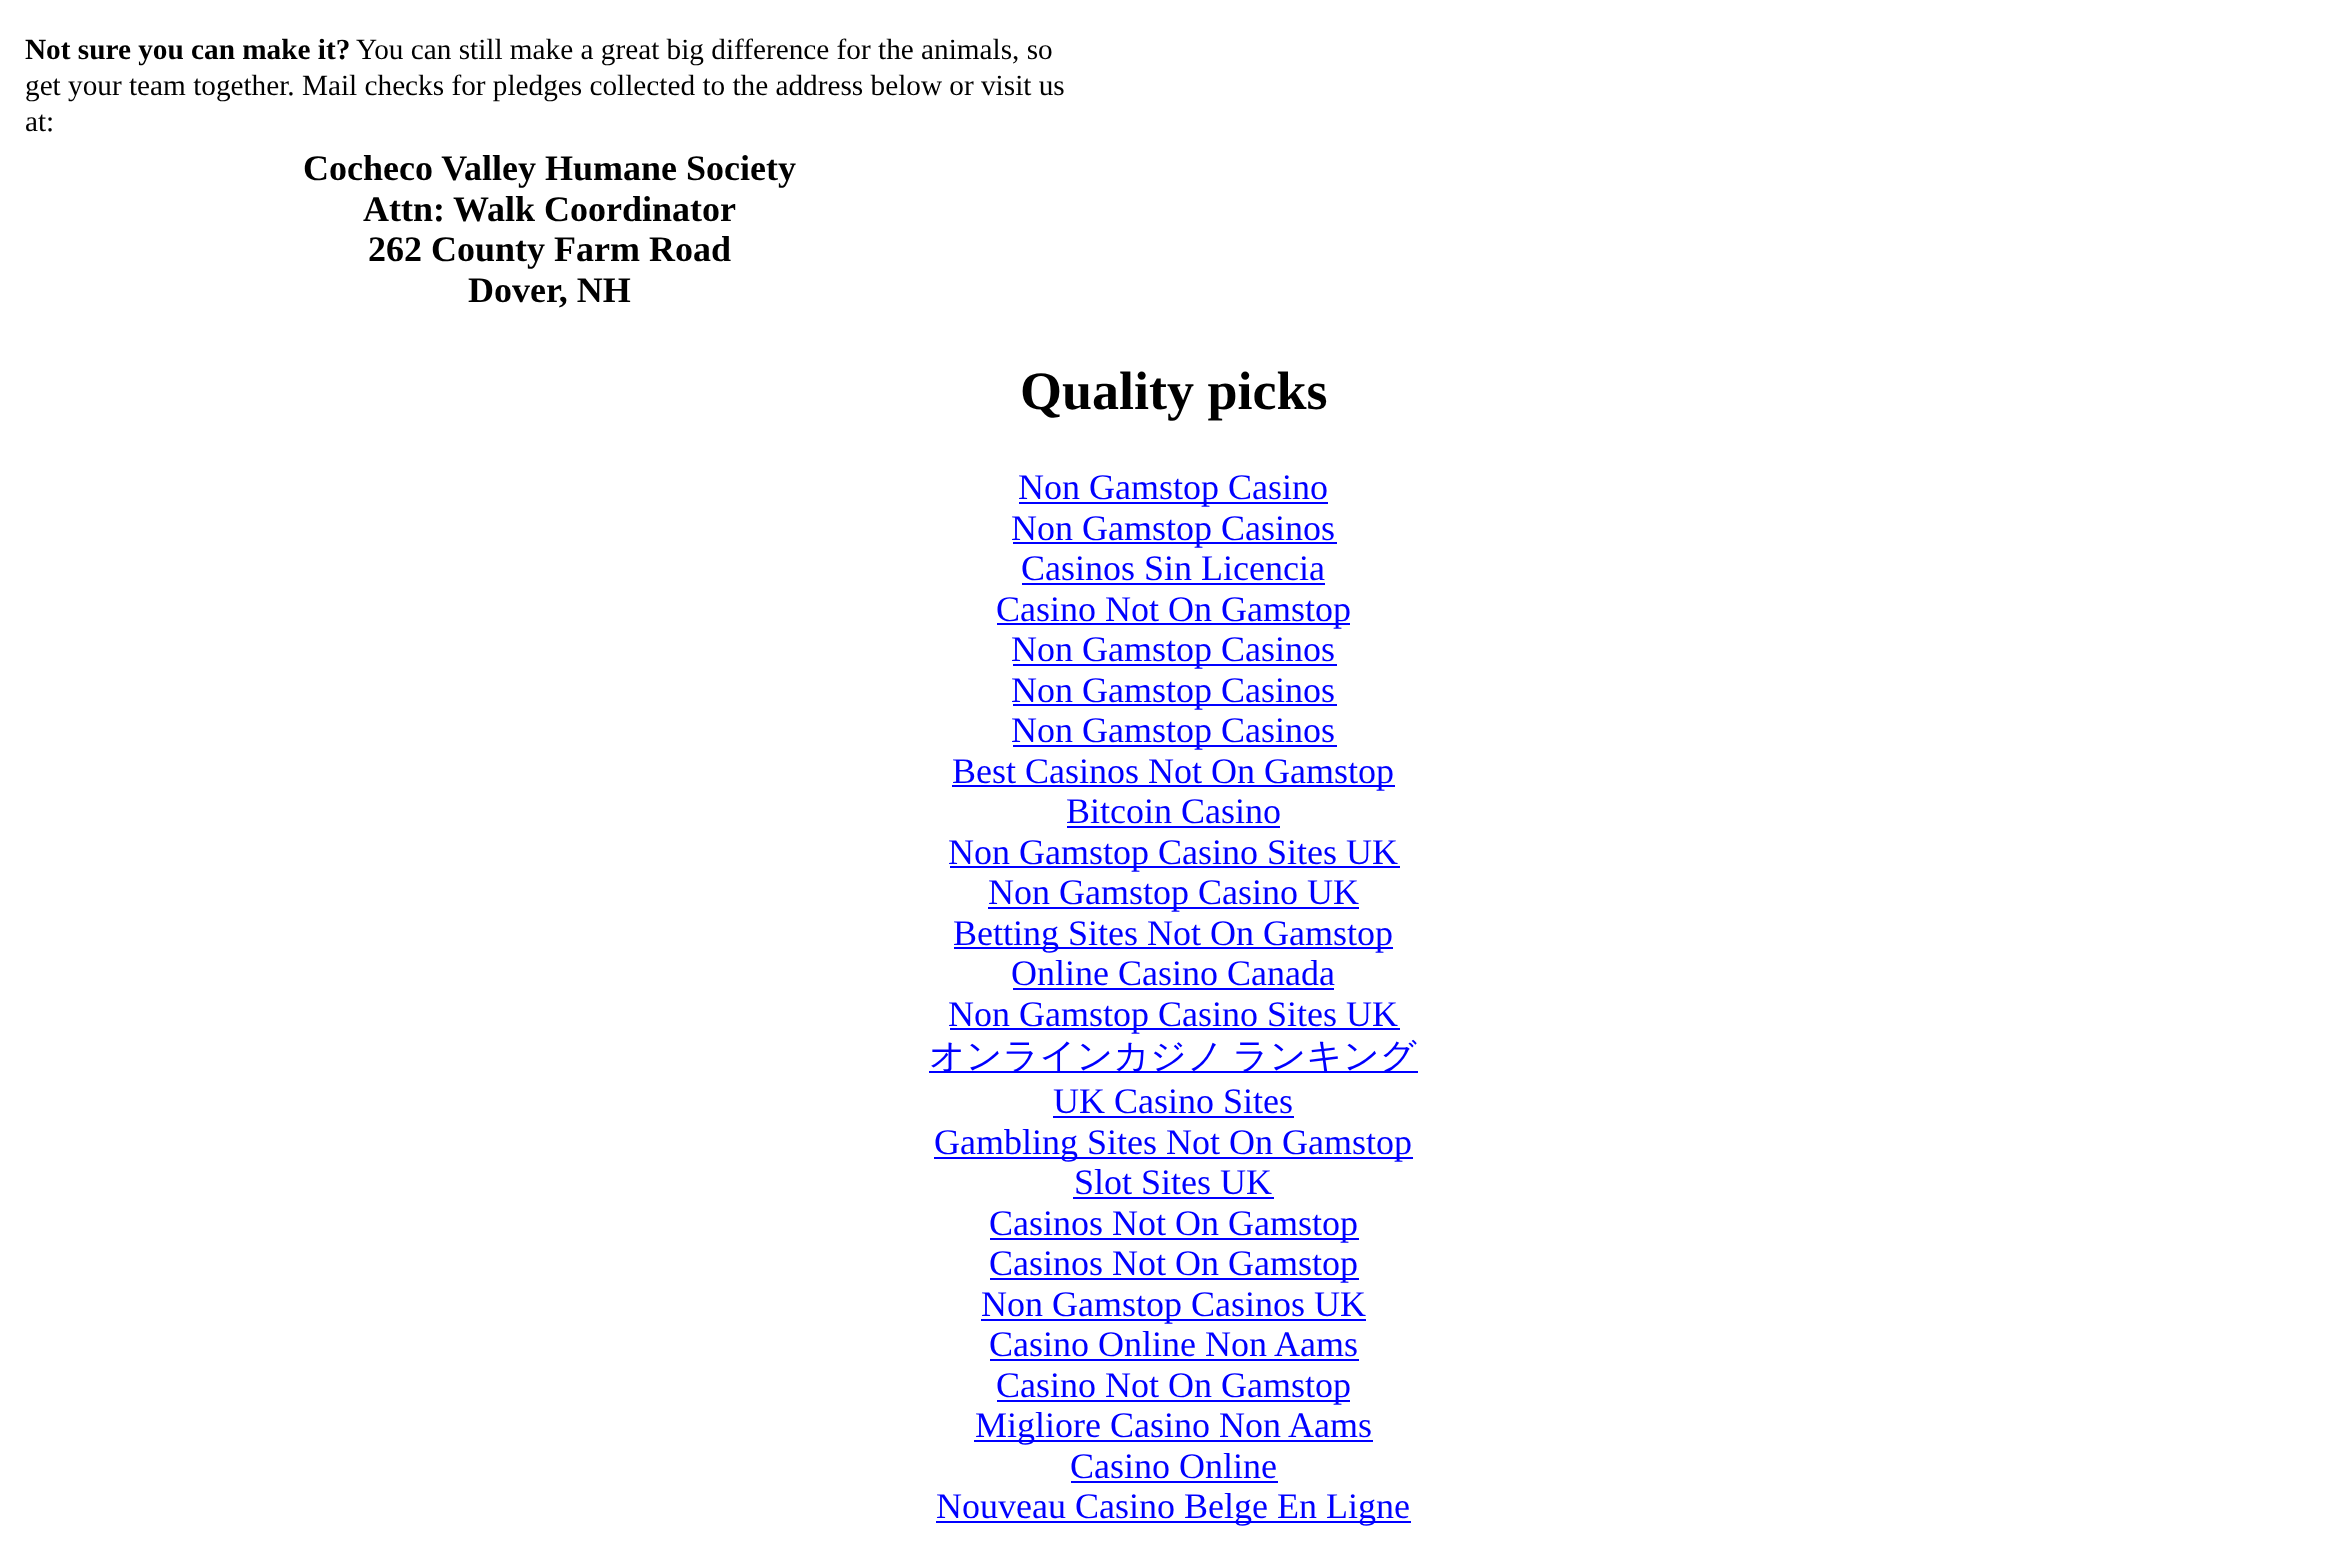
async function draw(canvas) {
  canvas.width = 2346
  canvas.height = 1562
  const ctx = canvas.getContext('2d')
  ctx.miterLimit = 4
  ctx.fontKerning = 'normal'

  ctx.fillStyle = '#fff'
  ctx.fillRect(0, 0, 2346, 1562)
  ctx.font = 'bold 29.25px Liberation Serif'
  ctx.fillStyle = '#000'
  ctx.fillText('Not sure you can make it?', 25, 59)
  ctx.font = '29.25px Liberation Serif'
  ctx.fillText('You can still make a great big difference for the animals, so', 356, 59)
  ctx.fillText('get your team together. Mail checks for pledges collected to the address below or visit us', 25, 95)
  ctx.fillText('at:', 25, 131)
  ctx.font = 'bold 36px Liberation Serif'
  ctx.fillText('Cocheco Valley Humane Society', 303, 180)
  ctx.fillText('Attn:', 363, 221)
  ctx.fillText('Walk Coordinator', 453, 221)
  ctx.fillText('262 County Farm Road', 368, 261)
  ctx.fillText('Dover, NH', 468, 302)
  ctx.font = 'bold 54px Liberation Serif'
  ctx.fillText('Quality picks', 1020, 409)
  ctx.fillStyle = '#00f'
  ctx.fillRect(1019, 502, 309, 2)
  ctx.font = '36px Liberation Serif'
  ctx.fillText('Non Gamstop Casino', 1018, 499)
  ctx.fillRect(1013, 542, 324, 2)
  ctx.fillText('Non Gamstop Casinos', 1011, 540)
  ctx.fillText('Casinos Sin Licencia', 1021, 580)
  ctx.fillRect(1022, 583, 303, 2)
  ctx.fillRect(997, 623, 353, 2)
  ctx.fillText('Casino Not On Gamstop', 996, 621)
  ctx.fillRect(1013, 664, 324, 2)
  ctx.fillText('Non Gamstop Casinos', 1011, 661)
  ctx.fillRect(1013, 704, 324, 2)
  ctx.fillText('Non Gamstop Casinos', 1011, 702)
  ctx.fillRect(1013, 745, 324, 2)
  ctx.fillText('Non Gamstop Casinos', 1011, 742)
  ctx.fillRect(952, 785, 443, 2)
  ctx.fillText('Best Casinos Not On Gamstop', 952, 783)
  ctx.fillText('Bitcoin Casino', 1066, 823)
  ctx.fillRect(1067, 826, 213, 2)
  ctx.fillRect(950, 866, 450, 2)
  ctx.fillText('Non Gamstop Casino Sites UK', 948, 864)
  ctx.fillRect(988, 907, 371, 2)
  ctx.fillText('Non Gamstop Casino UK', 988, 904)
  ctx.fillRect(954, 947, 439, 2)
  ctx.fillText('Betting Sites Not On Gamstop', 953, 945)
  ctx.fillText('Online Casino Canada', 1011, 985)
  ctx.fillRect(1013, 988, 321, 2)
  ctx.fillRect(950, 1028, 450, 2)
  ctx.fillText('Non Gamstop Casino Sites UK', 948, 1026)
  ctx.fillRect(929, 1071, 489, 2)
  ctx.wordSpacing = '-2px'
  ctx.font = '500 36px WenQuanYi Zen Hei'
  ctx.fillText('オンラインカジノ ランキング', 929, 1068)
  ctx.wordSpacing = '0px'
  ctx.font = '36px Liberation Serif'
  ctx.fillText('UK Casino Sites', 1053, 1113)
  ctx.fillRect(1053, 1116, 241, 2)
  ctx.fillRect(934, 1157, 479, 2)
  ctx.fillText('Gambling Sites Not On Gamstop', 934, 1154)
  ctx.fillText('Slot Sites UK', 1074, 1194)
  ctx.fillRect(1073, 1197, 201, 2)
  ctx.fillRect(990, 1238, 369, 2)
  ctx.fillText('Casinos Not On Gamstop', 989, 1235)
  ctx.fillRect(990, 1278, 369, 2)
  ctx.fillText('Casinos Not On Gamstop', 989, 1275)
  ctx.fillRect(981, 1319, 385, 2)
  ctx.fillText('Non Gamstop Casinos UK', 981, 1316)
  ctx.fillText('Casino Online Non Aams', 989, 1356)
  ctx.fillRect(990, 1359, 369, 2)
  ctx.fillRect(997, 1400, 353, 2)
  ctx.fillText('Casino Not On Gamstop', 996, 1397)
  ctx.fillRect(974, 1440, 399, 2)
  ctx.fillText('Migliore Casino Non Aams', 975, 1437)
  ctx.fillText('Casino Online', 1070, 1478)
  ctx.fillRect(1071, 1481, 207, 2)
  ctx.fillRect(936, 1521, 475, 2)
  ctx.fillText('Nouveau Casino Belge En Ligne', 936, 1518)
}

draw(document.querySelector('canvas'))
